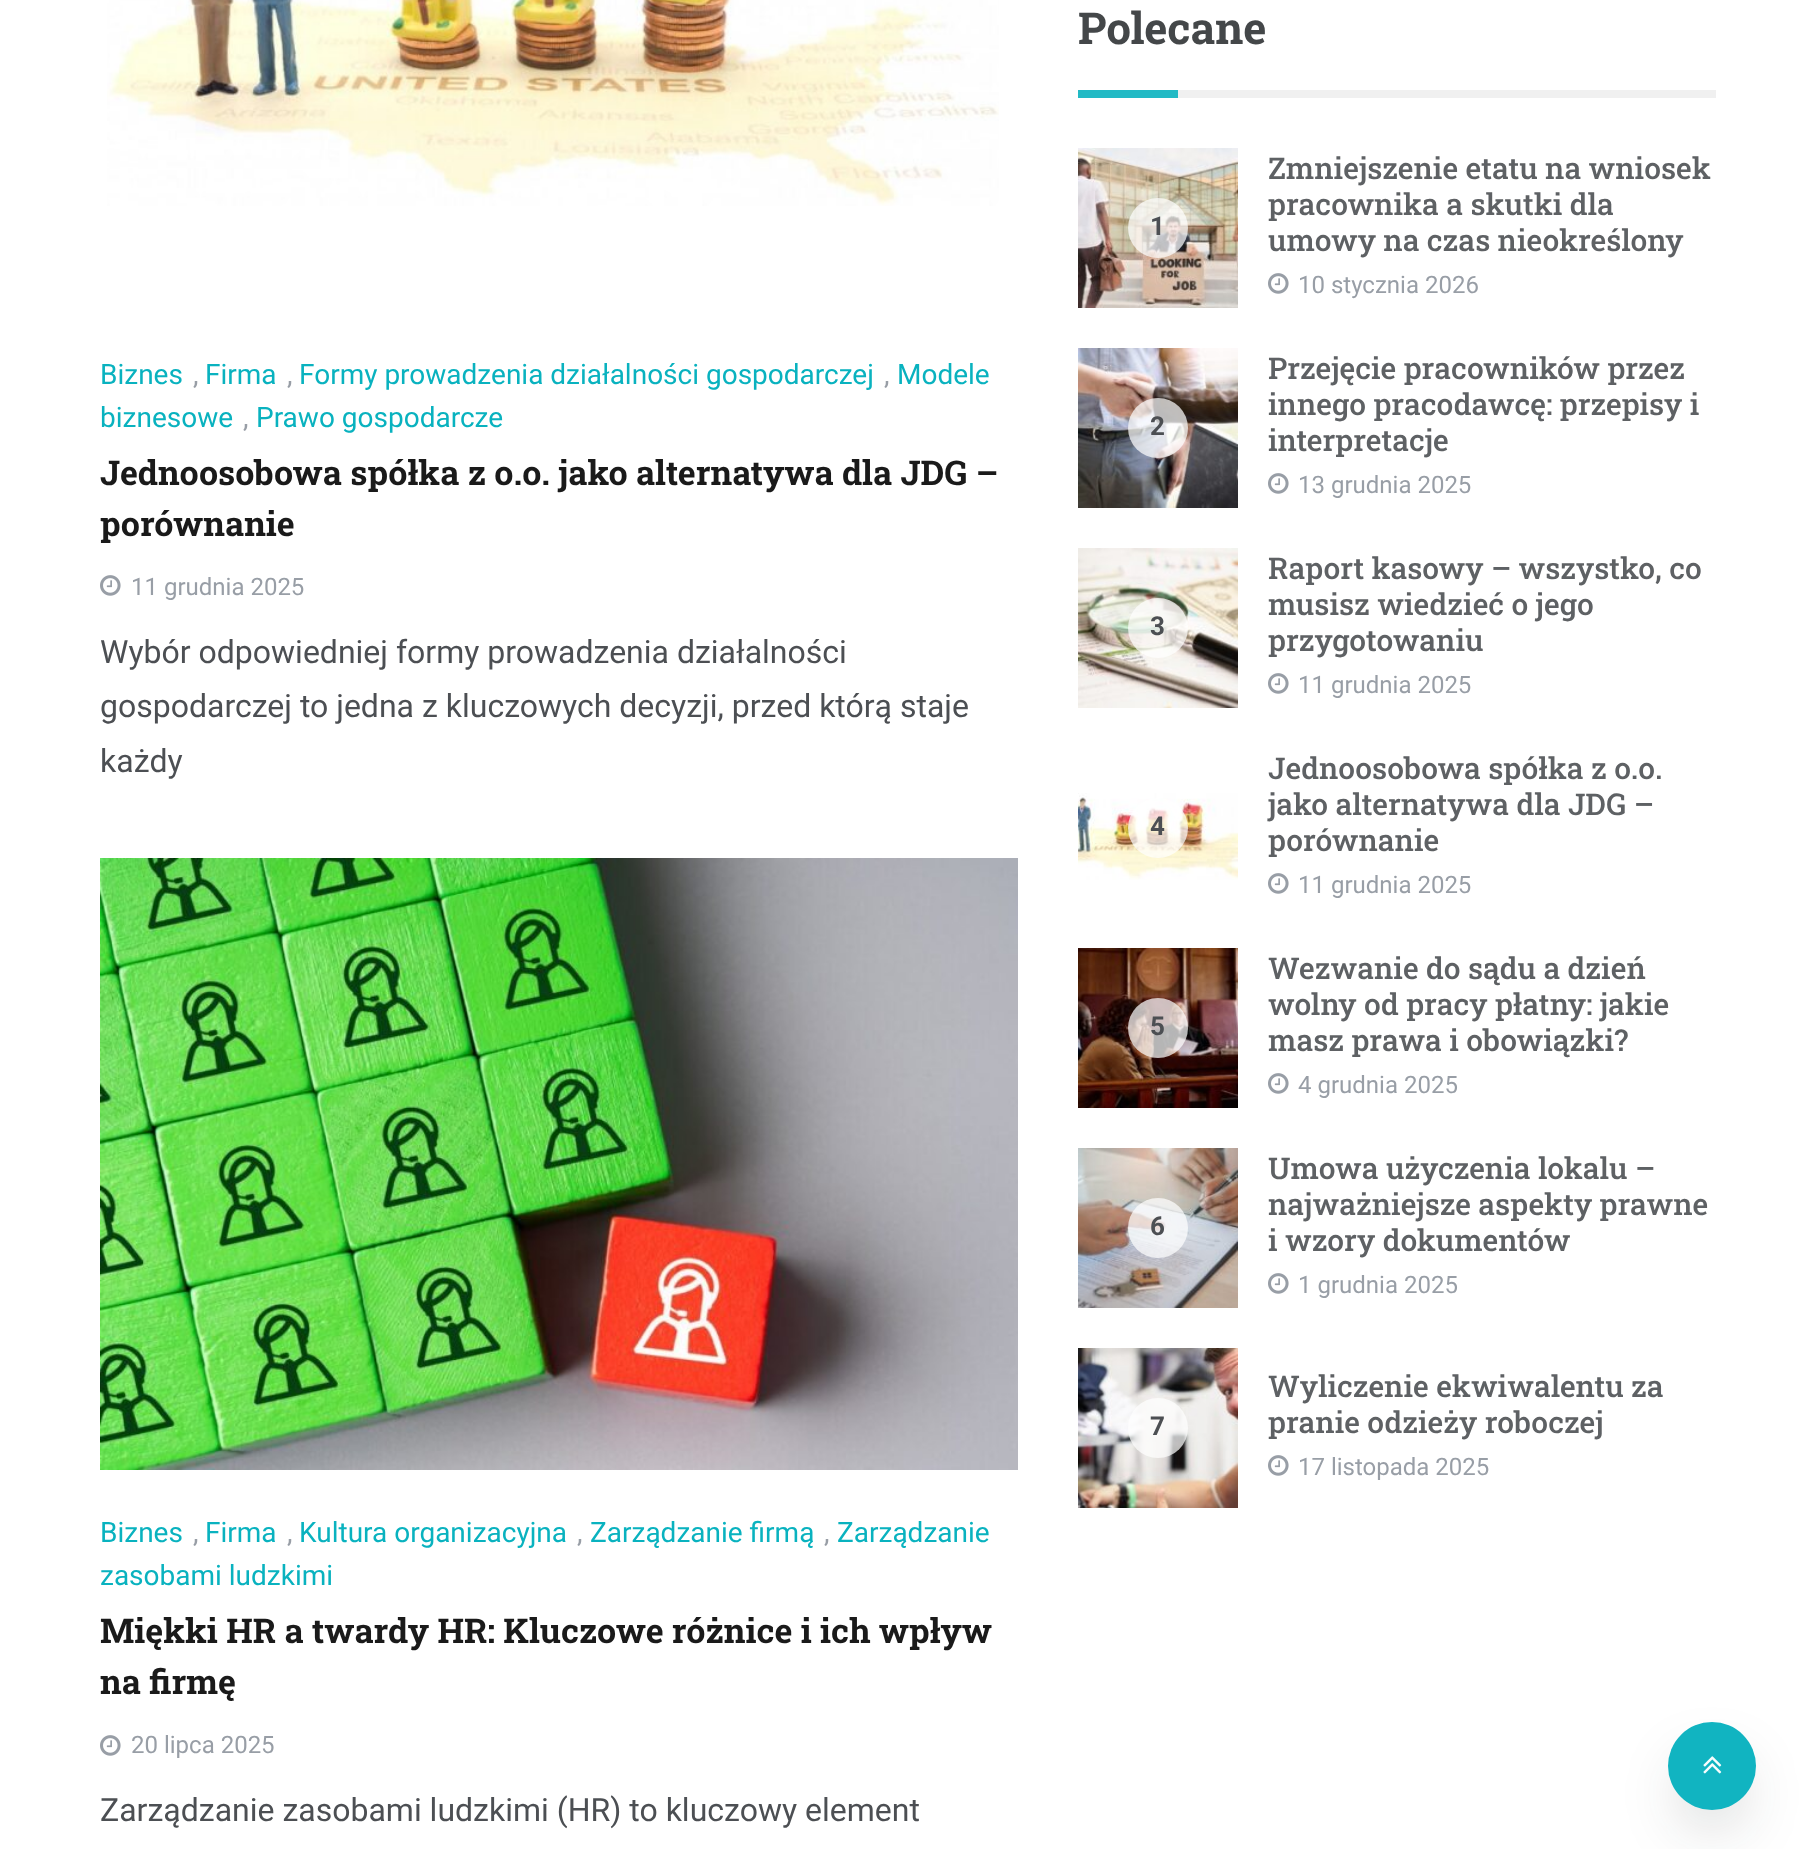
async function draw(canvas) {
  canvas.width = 1815
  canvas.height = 1849
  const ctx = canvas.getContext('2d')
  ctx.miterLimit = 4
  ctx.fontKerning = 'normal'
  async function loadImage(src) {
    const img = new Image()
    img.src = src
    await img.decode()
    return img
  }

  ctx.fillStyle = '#fff'
  ctx.fillRect(0, 0, 1815, 1849)
  ctx.drawImage(await loadImage('image0.png'), 107, 0, 892, 206)
  ctx.font = '28px Roboto'
  ctx.fillStyle = '#09b2bf'
  ctx.fillText('Biznes', 100, 384)
  ctx.fillStyle = '#989ea6'
  ctx.fillText(',', 193, 384)
  ctx.fillStyle = '#09b2bf'
  ctx.fillText('Firma', 205, 384)
  ctx.fillStyle = '#989ea6'
  ctx.fillText(',', 287, 384)
  ctx.fillStyle = '#09b2bf'
  ctx.fillText('Formy prowadzenia działalności gospodarczej', 299, 384)
  ctx.fillStyle = '#989ea6'
  ctx.fillText(',', 884, 384)
  ctx.fillStyle = '#09b2bf'
  ctx.fillText('Modele', 897, 384)
  ctx.fillText('biznesowe', 100, 427)
  ctx.fillStyle = '#989ea6'
  ctx.fillText(',', 243, 427)
  ctx.fillStyle = '#09b2bf'
  ctx.fillText('Prawo gospodarcze', 256, 427)
  ctx.font = 'bold 34px Roboto Slab'
  ctx.fillStyle = '#1a1a1a'
  ctx.fillText('Jednoosobowa spółka z o.o. jako alternatywa dla JDG –', 100, 485)
  ctx.fillText('porównanie', 100, 536)
  ctx.drawImage(await loadImage('image1.png'), 100, 575, 21, 21)
  ctx.font = '24px Roboto'
  ctx.fillStyle = '#989ea6'
  ctx.fillText('11 grudnia 2025', 131, 595)
  ctx.font = '32px Roboto'
  ctx.fillStyle = '#4c4f53'
  ctx.fillText('Wybór odpowiedniej formy prowadzenia działalności', 100, 663)
  ctx.fillText('gospodarczej to jedna z kluczowych decyzji, przed którą staje', 100, 717)
  ctx.fillText('każdy', 100, 772)
  ctx.drawImage(await loadImage('image2.png'), 100, 858, 918, 612)
  ctx.font = '28px Roboto'
  ctx.fillStyle = '#09b2bf'
  ctx.fillText('Biznes', 100, 1542)
  ctx.fillStyle = '#989ea6'
  ctx.fillText(',', 193, 1542)
  ctx.fillStyle = '#09b2bf'
  ctx.fillText('Firma', 205, 1542)
  ctx.fillStyle = '#989ea6'
  ctx.fillText(',', 287, 1542)
  ctx.fillStyle = '#09b2bf'
  ctx.fillText('Kultura organizacyjna', 299, 1542)
  ctx.fillStyle = '#989ea6'
  ctx.fillText(',', 577, 1542)
  ctx.fillStyle = '#09b2bf'
  ctx.fillText('Zarządzanie firmą', 590, 1542)
  ctx.fillStyle = '#989ea6'
  ctx.fillText(',', 824, 1542)
  ctx.fillStyle = '#09b2bf'
  ctx.fillText('Zarządzanie', 837, 1542)
  ctx.fillText('zasobami ludzkimi', 100, 1585)
  ctx.font = 'bold 34px Roboto Slab'
  ctx.fillStyle = '#1a1a1a'
  ctx.fillText('Miękki HR a twardy HR: Kluczowe różnice i ich wpływ', 100, 1643)
  ctx.fillText('na firmę', 100, 1694)
  ctx.drawImage(await loadImage('image1.png'), 100, 1735, 21, 21)
  ctx.font = '24px Roboto'
  ctx.fillStyle = '#989ea6'
  ctx.fillText('20 lipca 2025', 131, 1753)
  ctx.font = '32px Roboto'
  ctx.fillStyle = '#4c4f53'
  ctx.fillText('Zarządzanie zasobami ludzkimi (HR) to kluczowy element', 100, 1821)
  ctx.font = 'bold 44px Roboto Slab'
  ctx.fillStyle = '#444749'
  ctx.fillText('Polecane', 1078, 44)
  ctx.fillStyle = '#22bac5'
  ctx.fillRect(1078, 90, 100, 8)
  ctx.fillStyle = '#f0f0f0'
  ctx.fillRect(1178, 90, 538, 8)
  ctx.drawImage(await loadImage('image3.png'), 1078, 148, 160, 160)
  ctx.font = '500 30px Roboto Slab'
  ctx.fillStyle = '#5e6164'
  ctx.fillText('Zmniejszenie etatu na wniosek', 1268, 179)
  ctx.fillText('pracownika a skutki dla', 1268, 215)
  ctx.fillText('umowy na czas nieokreślony', 1268, 251)
  ctx.drawImage(await loadImage('image1.png'), 1268, 273, 21, 21)
  ctx.font = '24px Roboto'
  ctx.fillStyle = '#989ea6'
  ctx.fillText('10 stycznia 2026', 1298, 293)
  ctx.fillStyle = '#ffffffb5'
  ctx.beginPath()
  ctx.arc(1158, 228, 30, 0, 2 * Math.PI)
  ctx.fill()
  ctx.font = 'bold 26px Roboto'
  ctx.fillStyle = '#4c4f53'
  ctx.fillText('1', 1150, 235)
  ctx.drawImage(await loadImage('image4.png'), 1078, 348, 160, 160)
  ctx.font = '500 30px Roboto Slab'
  ctx.fillStyle = '#5e6164'
  ctx.fillText('Przejęcie pracowników przez', 1268, 379)
  ctx.fillText('innego pracodawcę: przepisy i', 1268, 415)
  ctx.fillText('interpretacje', 1268, 451)
  ctx.drawImage(await loadImage('image1.png'), 1268, 473, 21, 21)
  ctx.font = '24px Roboto'
  ctx.fillStyle = '#989ea6'
  ctx.fillText('13 grudnia 2025', 1298, 493)
  ctx.fillStyle = '#ffffffb5'
  ctx.beginPath()
  ctx.arc(1158, 428, 30, 0, 2 * Math.PI)
  ctx.fill()
  ctx.font = 'bold 26px Roboto'
  ctx.fillStyle = '#4c4f53'
  ctx.fillText('2', 1150, 435)
  ctx.drawImage(await loadImage('image5.png'), 1078, 548, 160, 160)
  ctx.font = '500 30px Roboto Slab'
  ctx.fillStyle = '#5e6164'
  ctx.fillText('Raport kasowy – wszystko, co', 1268, 579)
  ctx.fillText('musisz wiedzieć o jego', 1268, 615)
  ctx.fillText('przygotowaniu', 1268, 651)
  ctx.drawImage(await loadImage('image1.png'), 1268, 673, 21, 21)
  ctx.font = '24px Roboto'
  ctx.fillStyle = '#989ea6'
  ctx.fillText('11 grudnia 2025', 1298, 693)
  ctx.fillStyle = '#ffffffb5'
  ctx.beginPath()
  ctx.arc(1158, 628, 30, 0, 2 * Math.PI)
  ctx.fill()
  ctx.font = 'bold 26px Roboto'
  ctx.fillStyle = '#4c4f53'
  ctx.fillText('3', 1150, 635)
  ctx.drawImage(await loadImage('image6.png'), 1078, 793, 160, 87)
  ctx.font = '500 30px Roboto Slab'
  ctx.fillStyle = '#5e6164'
  ctx.fillText('Jednoosobowa spółka z o.o.', 1268, 779)
  ctx.fillText('jako alternatywa dla JDG –', 1268, 815)
  ctx.fillText('porównanie', 1268, 851)
  ctx.drawImage(await loadImage('image1.png'), 1268, 873, 21, 21)
  ctx.font = '24px Roboto'
  ctx.fillStyle = '#989ea6'
  ctx.fillText('11 grudnia 2025', 1298, 893)
  ctx.fillStyle = '#ffffffb5'
  ctx.beginPath()
  ctx.arc(1158, 828, 30, 0, 2 * Math.PI)
  ctx.fill()
  ctx.font = 'bold 26px Roboto'
  ctx.fillStyle = '#4c4f53'
  ctx.fillText('4', 1150, 835)
  ctx.drawImage(await loadImage('image7.png'), 1078, 948, 160, 160)
  ctx.font = '500 30px Roboto Slab'
  ctx.fillStyle = '#5e6164'
  ctx.fillText('Wezwanie do sądu a dzień', 1268, 979)
  ctx.fillText('wolny od pracy płatny: jakie', 1268, 1015)
  ctx.fillText('masz prawa i obowiązki?', 1268, 1051)
  ctx.drawImage(await loadImage('image1.png'), 1268, 1073, 21, 21)
  ctx.font = '24px Roboto'
  ctx.fillStyle = '#989ea6'
  ctx.fillText('4 grudnia 2025', 1298, 1093)
  ctx.fillStyle = '#ffffffb5'
  ctx.beginPath()
  ctx.arc(1158, 1028, 30, 0, 2 * Math.PI)
  ctx.fill()
  ctx.font = 'bold 26px Roboto'
  ctx.fillStyle = '#4c4f53'
  ctx.fillText('5', 1150, 1035)
  ctx.drawImage(await loadImage('image8.png'), 1078, 1148, 160, 160)
  ctx.font = '500 30px Roboto Slab'
  ctx.fillStyle = '#5e6164'
  ctx.fillText('Umowa użyczenia lokalu –', 1268, 1179)
  ctx.fillText('najważniejsze aspekty prawne', 1268, 1215)
  ctx.fillText('i wzory dokumentów', 1268, 1251)
  ctx.drawImage(await loadImage('image1.png'), 1268, 1273, 21, 21)
  ctx.font = '24px Roboto'
  ctx.fillStyle = '#989ea6'
  ctx.fillText('1 grudnia 2025', 1298, 1293)
  ctx.fillStyle = '#ffffffb5'
  ctx.beginPath()
  ctx.arc(1158, 1228, 30, 0, 2 * Math.PI)
  ctx.fill()
  ctx.font = 'bold 26px Roboto'
  ctx.fillStyle = '#4c4f53'
  ctx.fillText('6', 1150, 1235)
  ctx.drawImage(await loadImage('image9.png'), 1078, 1348, 160, 160)
  ctx.font = '500 30px Roboto Slab'
  ctx.fillStyle = '#5e6164'
  ctx.fillText('Wyliczenie ekwiwalentu za', 1268, 1397)
  ctx.fillText('pranie odzieży roboczej', 1268, 1433)
  ctx.drawImage(await loadImage('image1.png'), 1268, 1455, 21, 21)
  ctx.font = '24px Roboto'
  ctx.fillStyle = '#989ea6'
  ctx.fillText('17 listopada 2025', 1298, 1475)
  ctx.fillStyle = '#ffffffb5'
  ctx.beginPath()
  ctx.arc(1158, 1428, 30, 0, 2 * Math.PI)
  ctx.fill()
  ctx.font = 'bold 26px Roboto'
  ctx.fillStyle = '#4c4f53'
  ctx.fillText('7', 1150, 1435)
  ctx.fillStyle = '#16181b26'
  ctx.filter = 'blur(28px)'
  ctx.beginPath()
  ctx.roundRect(1676, 1758, 72, 72, 36)
  ctx.fill()
  ctx.filter = 'none'
  ctx.fillStyle = '#11b4c1'
  ctx.beginPath()
  ctx.arc(1712, 1766, 44, 0, 2 * Math.PI)
  ctx.fill()
  ctx.drawImage(await loadImage('image10.png'), 1703, 1756, 19, 18)
}

draw(document.querySelector('canvas'))
